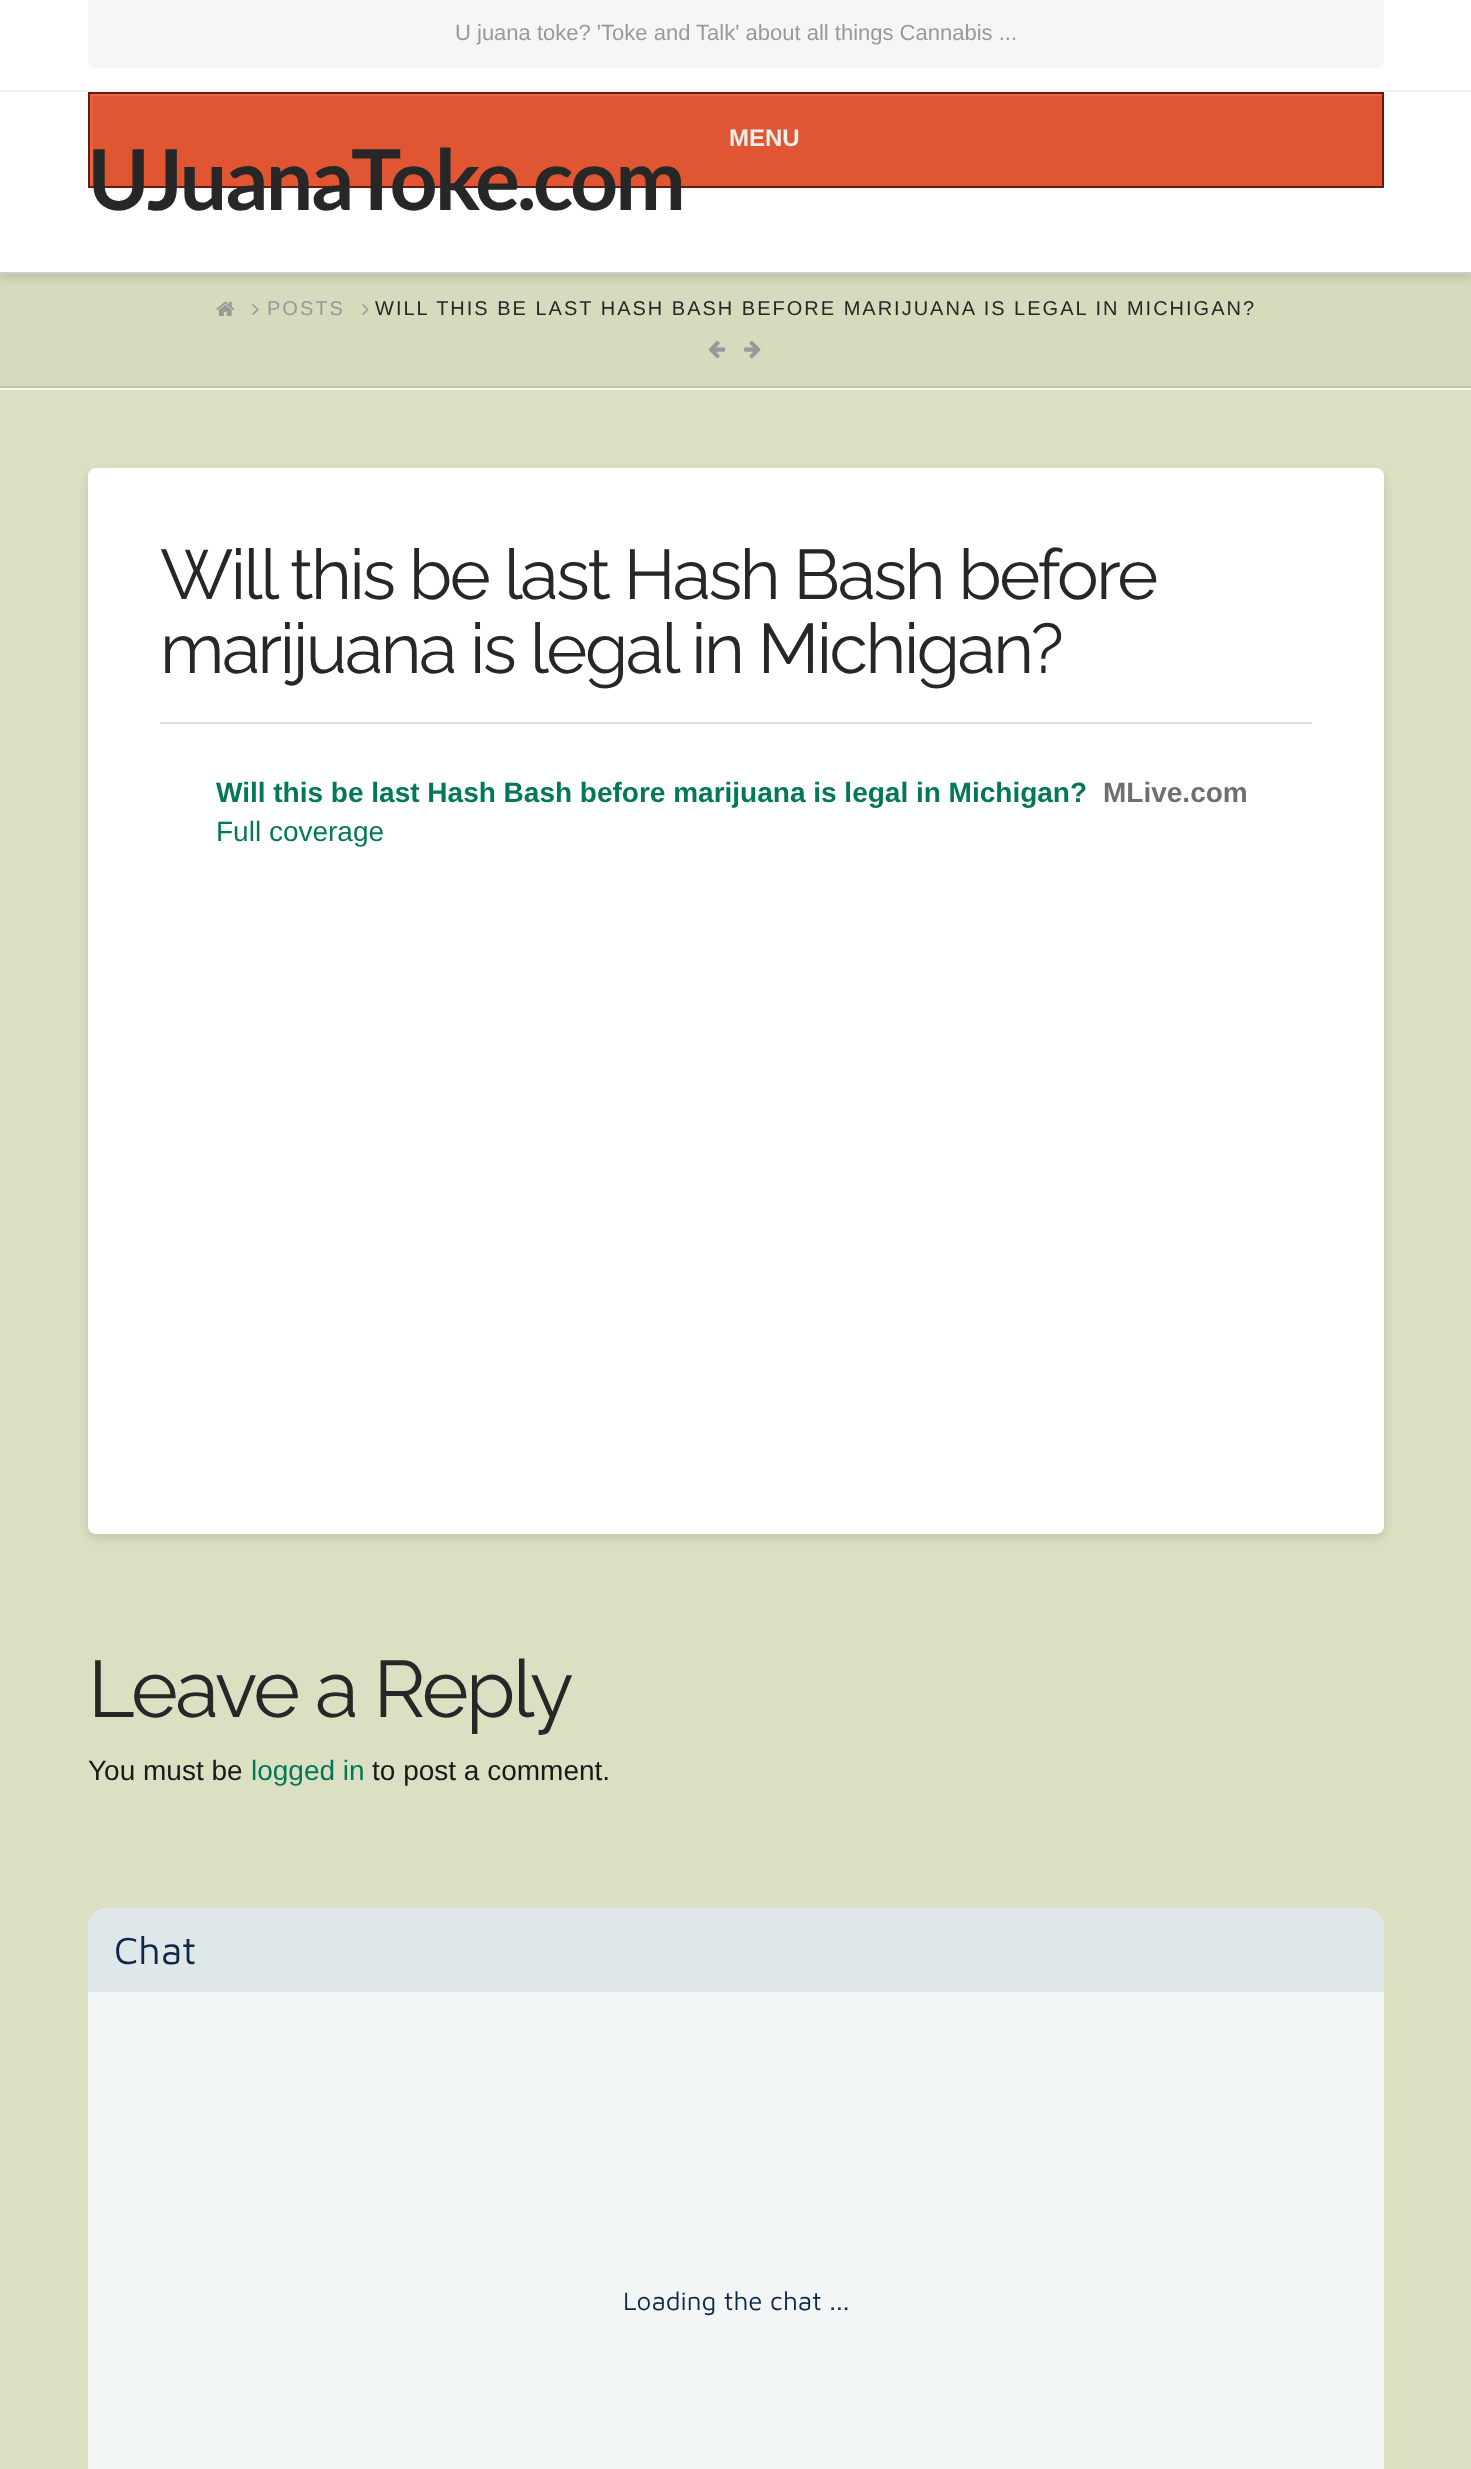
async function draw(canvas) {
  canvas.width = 1471
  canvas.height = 2469
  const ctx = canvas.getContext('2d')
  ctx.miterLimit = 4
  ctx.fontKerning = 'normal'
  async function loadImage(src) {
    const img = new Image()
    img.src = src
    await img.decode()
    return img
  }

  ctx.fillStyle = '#dbe0c2'
  ctx.fillRect(0, 0, 1471, 2469)
  ctx.fillStyle = '#d6dbbd'
  ctx.fillRect(0, 274, 1471, 112)
  ctx.fillStyle = '#00000021'
  ctx.filter = 'blur(5px)'
  ctx.beginPath()
  ctx.rect(0, 96, 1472, 182)
  ctx.fill()
  ctx.filter = 'none'
  ctx.fillStyle = '#fff'
  ctx.fillRect(0, 0, 1471, 90)
  ctx.fillStyle = '#f2f2f2'
  ctx.fillRect(0, 90, 1471, 2)
  ctx.fillStyle = '#f6f6f6'
  ctx.beginPath()
  ctx.roundRect(88, 0, 1296, 68, [0, 0, 8, 8])
  ctx.fill()
  ctx.font = '22px Liberation Sans'
  ctx.fillStyle = '#999'
  ctx.fillText('U juana toke? \'Toke and Talk\' about all things Cannabis ...', 455, 40)
  ctx.fillStyle = '#fff'
  ctx.fillRect(0, 92, 1471, 180)
  ctx.fillStyle = '#ccc'
  ctx.fillRect(0, 272, 1471, 2)
  ctx.fillStyle = '#e05633'
  ctx.fillRect(92, 96, 1290, 90)
  ctx.save()
  ctx.beginPath()
  ctx.rect(90, 94, 1292, 92)
  ctx.clip()
  ctx.fillStyle = '#e36747'
  ctx.beginPath()
  ctx.moveTo(-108, -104)
  ctx.lineTo(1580, -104)
  ctx.lineTo(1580, 384)
  ctx.lineTo(-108, 384)
  ctx.closePath()
  ctx.moveTo(92, 96)
  ctx.lineTo(1384, 96)
  ctx.lineTo(1384, 188)
  ctx.lineTo(92, 188)
  ctx.closePath()
  ctx.fill('evenodd')
  ctx.restore()
  ctx.strokeStyle = '#6b1812'
  ctx.lineWidth = 2
  ctx.strokeRect(89, 93, 1294, 94)
  ctx.font = 'bold 24px Liberation Sans'
  ctx.fillStyle = '#eee'
  ctx.fillText('MENU', 729, 146)
  ctx.letterSpacing = '-3px'
  ctx.font = 'bold 84px Lato'
  ctx.fillStyle = '#272727'
  ctx.fillText('UJuanaToke.com', 88, 210)
  ctx.fillStyle = '#f5f6ee'
  ctx.fillRect(0, 388, 1471, 2)
  ctx.fillStyle = '#c1c5aa'
  ctx.fillRect(0, 386, 1471, 2)
  ctx.drawImage(await loadImage('image0.png'), 216, 301, 19, 15)
  ctx.drawImage(await loadImage('image1.png'), 252, 304, 7, 11)
  ctx.letterSpacing = '2px'
  ctx.font = '20px Liberation Sans'
  ctx.fillStyle = '#999'
  ctx.fillText('POSTS', 267, 315)
  ctx.drawImage(await loadImage('image1.png'), 362, 304, 7, 11)
  ctx.fillStyle = '#272727'
  ctx.fillText('WILL THIS BE LAST HASH BASH BEFORE MARIJUANA IS LEGAL IN MICHIGAN?', 375, 315)
  ctx.drawImage(await loadImage('image2.png'), 708, 340, 18, 19)
  ctx.drawImage(await loadImage('image3.png'), 744, 340, 17, 19)
  ctx.fillStyle = '#00000021'
  ctx.filter = 'blur(5px)'
  ctx.beginPath()
  ctx.roundRect(88, 472, 1296, 1066, 8)
  ctx.fill()
  ctx.filter = 'none'
  ctx.fillStyle = '#fff'
  ctx.beginPath()
  ctx.roundRect(88, 468, 1296, 1066, 8)
  ctx.fill()
  ctx.letterSpacing = '-2.45px'
  ctx.font = '100 70px Raleway'
  ctx.fillStyle = '#272727'
  ctx.fillText('Will this be last Hash Bash before', 160, 599)
  ctx.fillText('marijuana is legal in Michigan?', 160, 673)
  ctx.fillStyle = '#ddd'
  ctx.fillRect(160, 722, 1152, 2)
  ctx.letterSpacing = '0px'
  ctx.font = 'bold 28px Liberation Sans'
  ctx.fillStyle = '#03775a'
  ctx.fillText('Will this be last Hash Bash before marijuana is legal in Michigan?', 216, 802)
  ctx.fillStyle = '#6f6f6f'
  ctx.fillText('MLive.com', 1103, 802)
  ctx.font = '28px Liberation Sans'
  ctx.fillStyle = '#03775a'
  ctx.fillText('Full coverage', 216, 841)
  ctx.letterSpacing = '-2.75px'
  ctx.font = '100 80px Raleway'
  ctx.fillStyle = '#272727'
  ctx.fillText('Leave a Reply', 88, 1717)
  ctx.letterSpacing = '0px'
  ctx.font = '28px Liberation Sans'
  ctx.fillStyle = '#1a1919'
  ctx.fillText('You must be', 88, 1780)
  ctx.fillStyle = '#03775a'
  ctx.fillText('logged in', 251, 1780)
  ctx.fillStyle = '#1a1919'
  ctx.fillText('to post a comment.', 372, 1780)
  ctx.fillStyle = '#f3f6f7'
  ctx.beginPath()
  ctx.roundRect(88, 1908, 1296, 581, 20)
  ctx.fill()
  ctx.fillStyle = '#dfe7ea'
  ctx.beginPath()
  ctx.roundRect(88, 1908, 1296, 84, [20, 20, 0, 0])
  ctx.fill()
  ctx.font = '39px Maven Pro'
  ctx.fillStyle = '#0e2849'
  ctx.fillText('Chat', 114, 1964)
  ctx.font = '26px Maven Pro'
  ctx.fillText('Loading the chat ...', 623, 2310)
}

draw(document.querySelector('canvas'))
